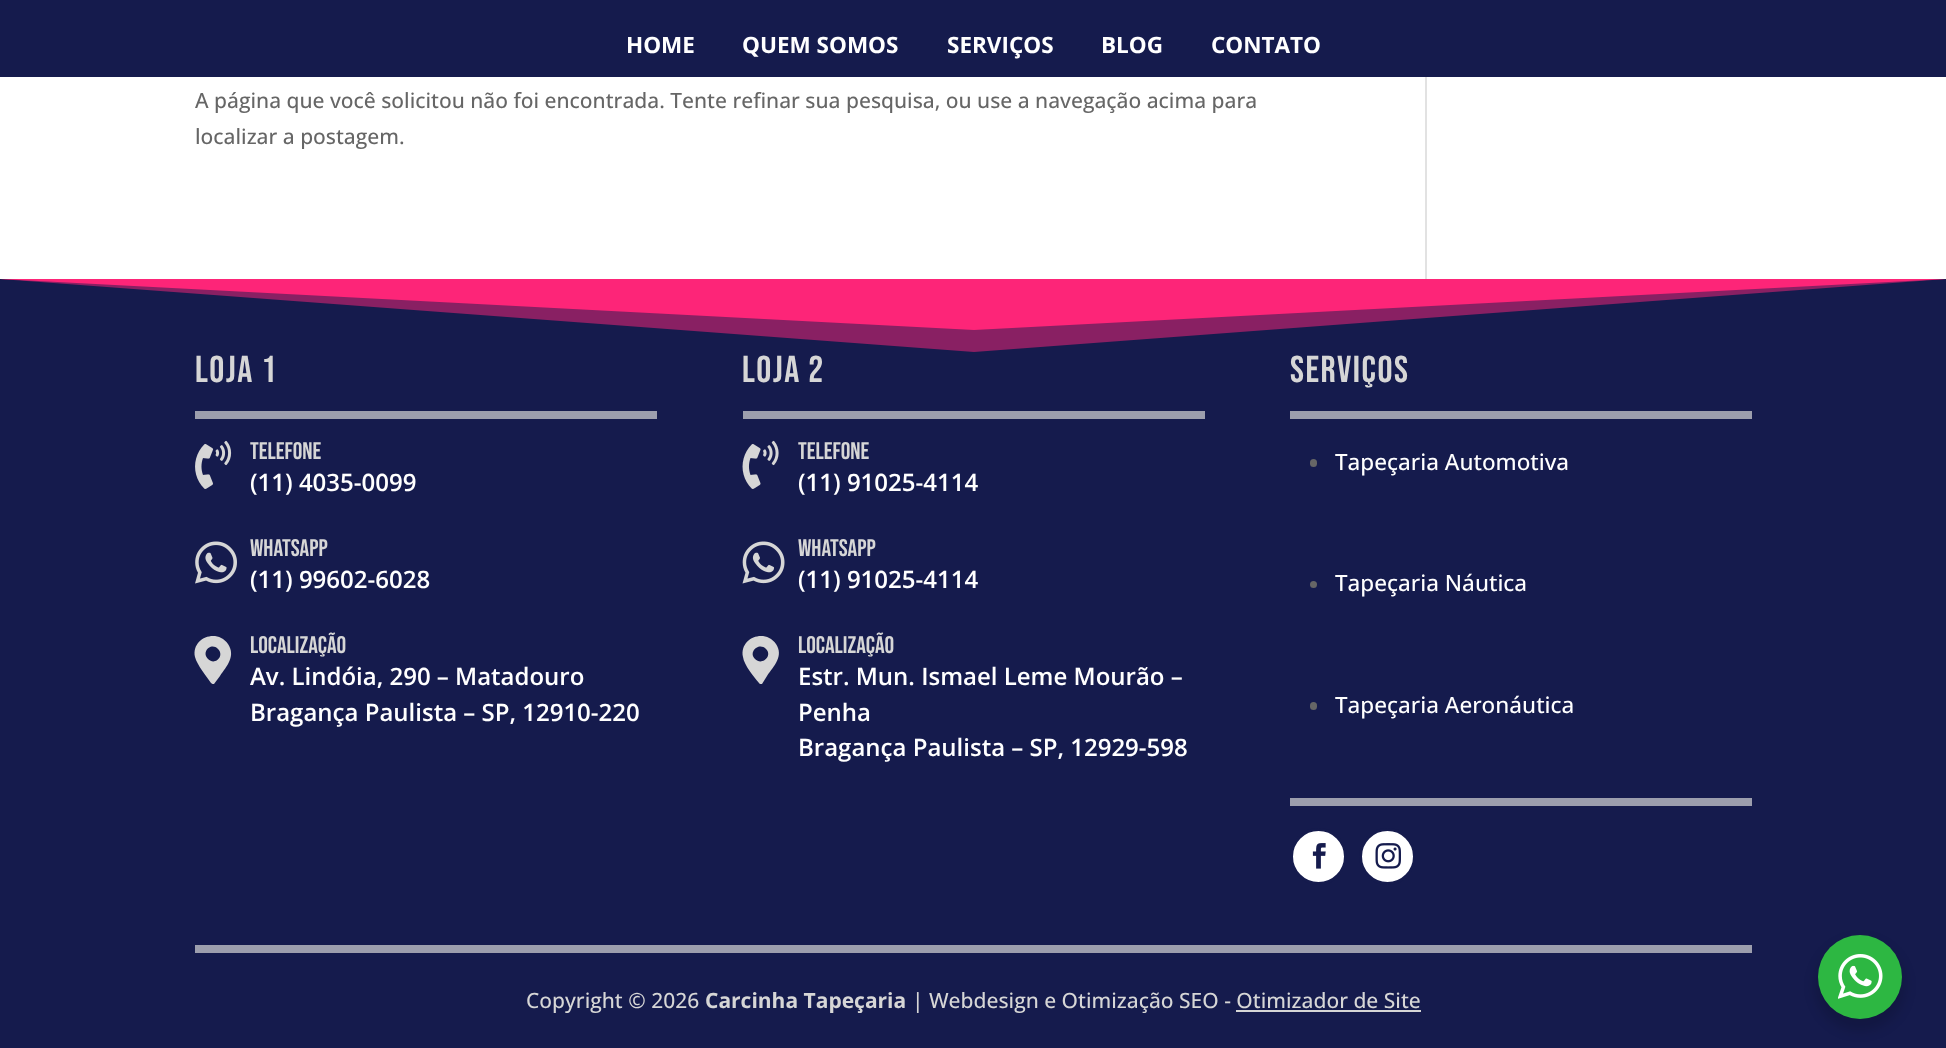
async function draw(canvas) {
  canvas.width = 1946
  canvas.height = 1048
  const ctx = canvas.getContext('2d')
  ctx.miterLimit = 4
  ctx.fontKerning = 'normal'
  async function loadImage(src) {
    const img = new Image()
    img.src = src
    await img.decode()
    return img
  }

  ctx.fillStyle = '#fff'
  ctx.fillRect(0, 0, 1946, 1048)
  ctx.fillStyle = '#151b4d'
  ctx.fillRect(0, 0, 1946, 77)
  ctx.font = 'bold 22.5px Open Sans'
  ctx.fillStyle = '#fff'
  ctx.fillText('HOME', 626, 53)
  ctx.fillText('QUEM SOMOS', 742, 53)
  ctx.fillText('SERVIÇOS', 947, 53)
  ctx.fillText('BLOG', 1101, 53)
  ctx.fillText('CONTATO', 1211, 53)
  ctx.font = '500 21px Open Sans'
  ctx.fillStyle = '#666'
  ctx.fillText('A página que você solicitou não foi encontrada. Tente refinar sua pesquisa, ou use a navegação acima para', 195, 108)
  ctx.fillText('localizar a postagem.', 195, 144)
  ctx.fillStyle = '#e2e2e2'
  ctx.fillRect(1425, 77, 2, 202)
  ctx.fillStyle = '#151b4d'
  ctx.fillRect(0, 279, 1946, 769)
  ctx.fillStyle = '#892063'
  ctx.beginPath()
  ctx.moveTo(974, 352)
  ctx.lineTo(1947, 279)
  ctx.lineTo(0, 279)
  ctx.closePath()
  ctx.fill()
  ctx.fillStyle = '#fd2578'
  ctx.beginPath()
  ctx.moveTo(974, 330)
  ctx.lineTo(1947, 279)
  ctx.lineTo(0, 279)
  ctx.closePath()
  ctx.fill()
  ctx.fillStyle = '#9c9ead'
  ctx.fillRect(195, 411, 462, 8)
  ctx.letterSpacing = '1.5px'
  ctx.font = '37.5px Bebas Neue'
  ctx.fillStyle = '#d6d6d6'
  ctx.fillText('Loja 1', 195, 382)
  ctx.drawImage(await loadImage('image0.png'), 195, 440, 37, 49)
  ctx.letterSpacing = '0px'
  ctx.font = '24px Bebas Neue'
  ctx.fillText('Telefone', 250, 459)
  ctx.font = '600 24px Open Sans'
  ctx.fillStyle = '#fff'
  ctx.fillText('(11) 4035-0099', 250, 491)
  ctx.drawImage(await loadImage('image1.png'), 195, 541, 42, 43)
  ctx.font = '24px Bebas Neue'
  ctx.fillStyle = '#d6d6d6'
  ctx.fillText('WhatsApp', 250, 556)
  ctx.font = '600 24px Open Sans'
  ctx.fillStyle = '#fff'
  ctx.fillText('(11) 99602-6028', 250, 588)
  ctx.fillStyle = '#d6d6d6'
  ctx.beginPath()
  ctx.moveTo(211, 683)
  ctx.bezierCurveTo(207, 677, 197, 665, 195, 657)
  ctx.bezierCurveTo(191, 638, 217, 628, 228, 644)
  ctx.bezierCurveTo(236, 656, 227, 666, 220, 676)
  ctx.lineTo(214, 684)
  ctx.bezierCurveTo(213, 684, 212, 684, 211, 683)
  ctx.closePath()
  ctx.moveTo(208, 659)
  ctx.bezierCurveTo(215, 666, 225, 656, 218, 649)
  ctx.bezierCurveTo(211, 642, 201, 652, 208, 659)
  ctx.closePath()
  ctx.fill()
  ctx.font = '24px Bebas Neue'
  ctx.fillText('Localização', 250, 653)
  ctx.font = '600 24px Open Sans'
  ctx.fillStyle = '#fff'
  ctx.fillText('Av. Lindóia, 290 – Matadouro', 250, 685)
  ctx.fillText('Bragança Paulista – SP, 12910-220', 250, 721)
  ctx.fillStyle = '#9c9ead'
  ctx.fillRect(743, 411, 462, 8)
  ctx.letterSpacing = '1.5px'
  ctx.font = '37.5px Bebas Neue'
  ctx.fillStyle = '#d6d6d6'
  ctx.fillText('Loja 2', 742, 382)
  ctx.drawImage(await loadImage('image2.png'), 742, 440, 37, 49)
  ctx.letterSpacing = '0px'
  ctx.font = '24px Bebas Neue'
  ctx.fillText('Telefone', 798, 459)
  ctx.font = '600 24px Open Sans'
  ctx.fillStyle = '#fff'
  ctx.fillText('(11) 91025-4114', 798, 491)
  ctx.drawImage(await loadImage('image3.png'), 742, 541, 43, 43)
  ctx.font = '24px Bebas Neue'
  ctx.fillStyle = '#d6d6d6'
  ctx.fillText('WhatsApp', 798, 556)
  ctx.font = '600 24px Open Sans'
  ctx.fillStyle = '#fff'
  ctx.fillText('(11) 91025-4114', 798, 588)
  ctx.fillStyle = '#d6d6d6'
  ctx.beginPath()
  ctx.moveTo(759, 683)
  ctx.bezierCurveTo(754, 677, 744, 665, 743, 657)
  ctx.bezierCurveTo(739, 638, 765, 628, 776, 644)
  ctx.bezierCurveTo(784, 656, 774, 666, 767, 676)
  ctx.lineTo(762, 684)
  ctx.bezierCurveTo(761, 684, 759, 684, 759, 683)
  ctx.closePath()
  ctx.moveTo(755, 659)
  ctx.bezierCurveTo(762, 666, 773, 656, 766, 649)
  ctx.bezierCurveTo(759, 642, 748, 652, 755, 659)
  ctx.closePath()
  ctx.fill()
  ctx.font = '24px Bebas Neue'
  ctx.fillText('Localização', 798, 653)
  ctx.font = '600 24px Open Sans'
  ctx.fillStyle = '#fff'
  ctx.fillText('Estr. Mun. Ismael Leme Mourão –', 798, 685)
  ctx.fillText('Penha', 798, 721)
  ctx.fillText('Bragança Paulista – SP, 12929-598', 798, 756)
  ctx.fillStyle = '#9c9ead'
  ctx.fillRect(1290, 411, 462, 8)
  ctx.letterSpacing = '1.5px'
  ctx.font = '37.5px Bebas Neue'
  ctx.fillStyle = '#d6d6d6'
  ctx.fillText('Serviços', 1290, 382)
  ctx.fillStyle = '#666'
  ctx.beginPath()
  ctx.roundRect(1310, 459, 7, 8, 3.5)
  ctx.fill()
  ctx.letterSpacing = '0px'
  ctx.font = '500 22.5px Open Sans'
  ctx.fillStyle = '#fff'
  ctx.fillText('Tapeçaria Automotiva', 1335, 470)
  ctx.fillStyle = '#666'
  ctx.beginPath()
  ctx.arc(1313.5, 584.5, 3.5, 0, 2 * Math.PI)
  ctx.fill()
  ctx.fillStyle = '#fff'
  ctx.fillText('Tapeçaria Náutica', 1335, 591)
  ctx.fillStyle = '#666'
  ctx.beginPath()
  ctx.roundRect(1310, 702, 7, 8, 3.5)
  ctx.fill()
  ctx.fillStyle = '#fff'
  ctx.fillText('Tapeçaria Aeronáutica', 1335, 713)
  ctx.fillStyle = '#9c9ead'
  ctx.fillRect(1290, 798, 462, 8)
  ctx.fillStyle = '#fff'
  ctx.beginPath()
  ctx.arc(1318.5, 856.5, 27, 0, 2 * Math.PI)
  ctx.fill()
  ctx.strokeStyle = '#151b4d'
  ctx.lineWidth = 3
  ctx.stroke()
  ctx.drawImage(await loadImage('image4.png'), 1312, 843, 14, 26)
  ctx.beginPath()
  ctx.arc(1387.5, 856.5, 27, 0, 2 * Math.PI)
  ctx.fill()
  ctx.stroke()
  ctx.drawImage(await loadImage('image5.png'), 1375, 843, 26, 26)
  ctx.fillStyle = '#9c9ead'
  ctx.fillRect(195, 945, 1557, 8)
  ctx.font = '500 21px Open Sans'
  ctx.fillStyle = '#d6d6d6'
  ctx.fillText('Copyright © 2026', 526, 1008)
  ctx.font = 'bold 21px Open Sans'
  ctx.fillText('Carcinha Tapeçaria', 705, 1008)
  ctx.font = '500 21px Open Sans'
  ctx.fillText('| Webdesign e Otimização SEO - Otimizador de Site', 912, 1008)
  ctx.fillRect(1236, 1010, 185, 2)
  ctx.fillStyle = '#00000024'
  ctx.filter = 'blur(6px)'
  ctx.beginPath()
  ctx.roundRect(1815, 941, 90, 90, 45)
  ctx.fill()
  ctx.filter = 'none'
  ctx.fillStyle = '#2db742'
  ctx.beginPath()
  ctx.arc(1860, 977, 42, 0, 2 * Math.PI)
  ctx.fill()
  ctx.drawImage(await loadImage('image6.png'), 1838, 954, 45, 45)
}

draw(document.querySelector('canvas'))
